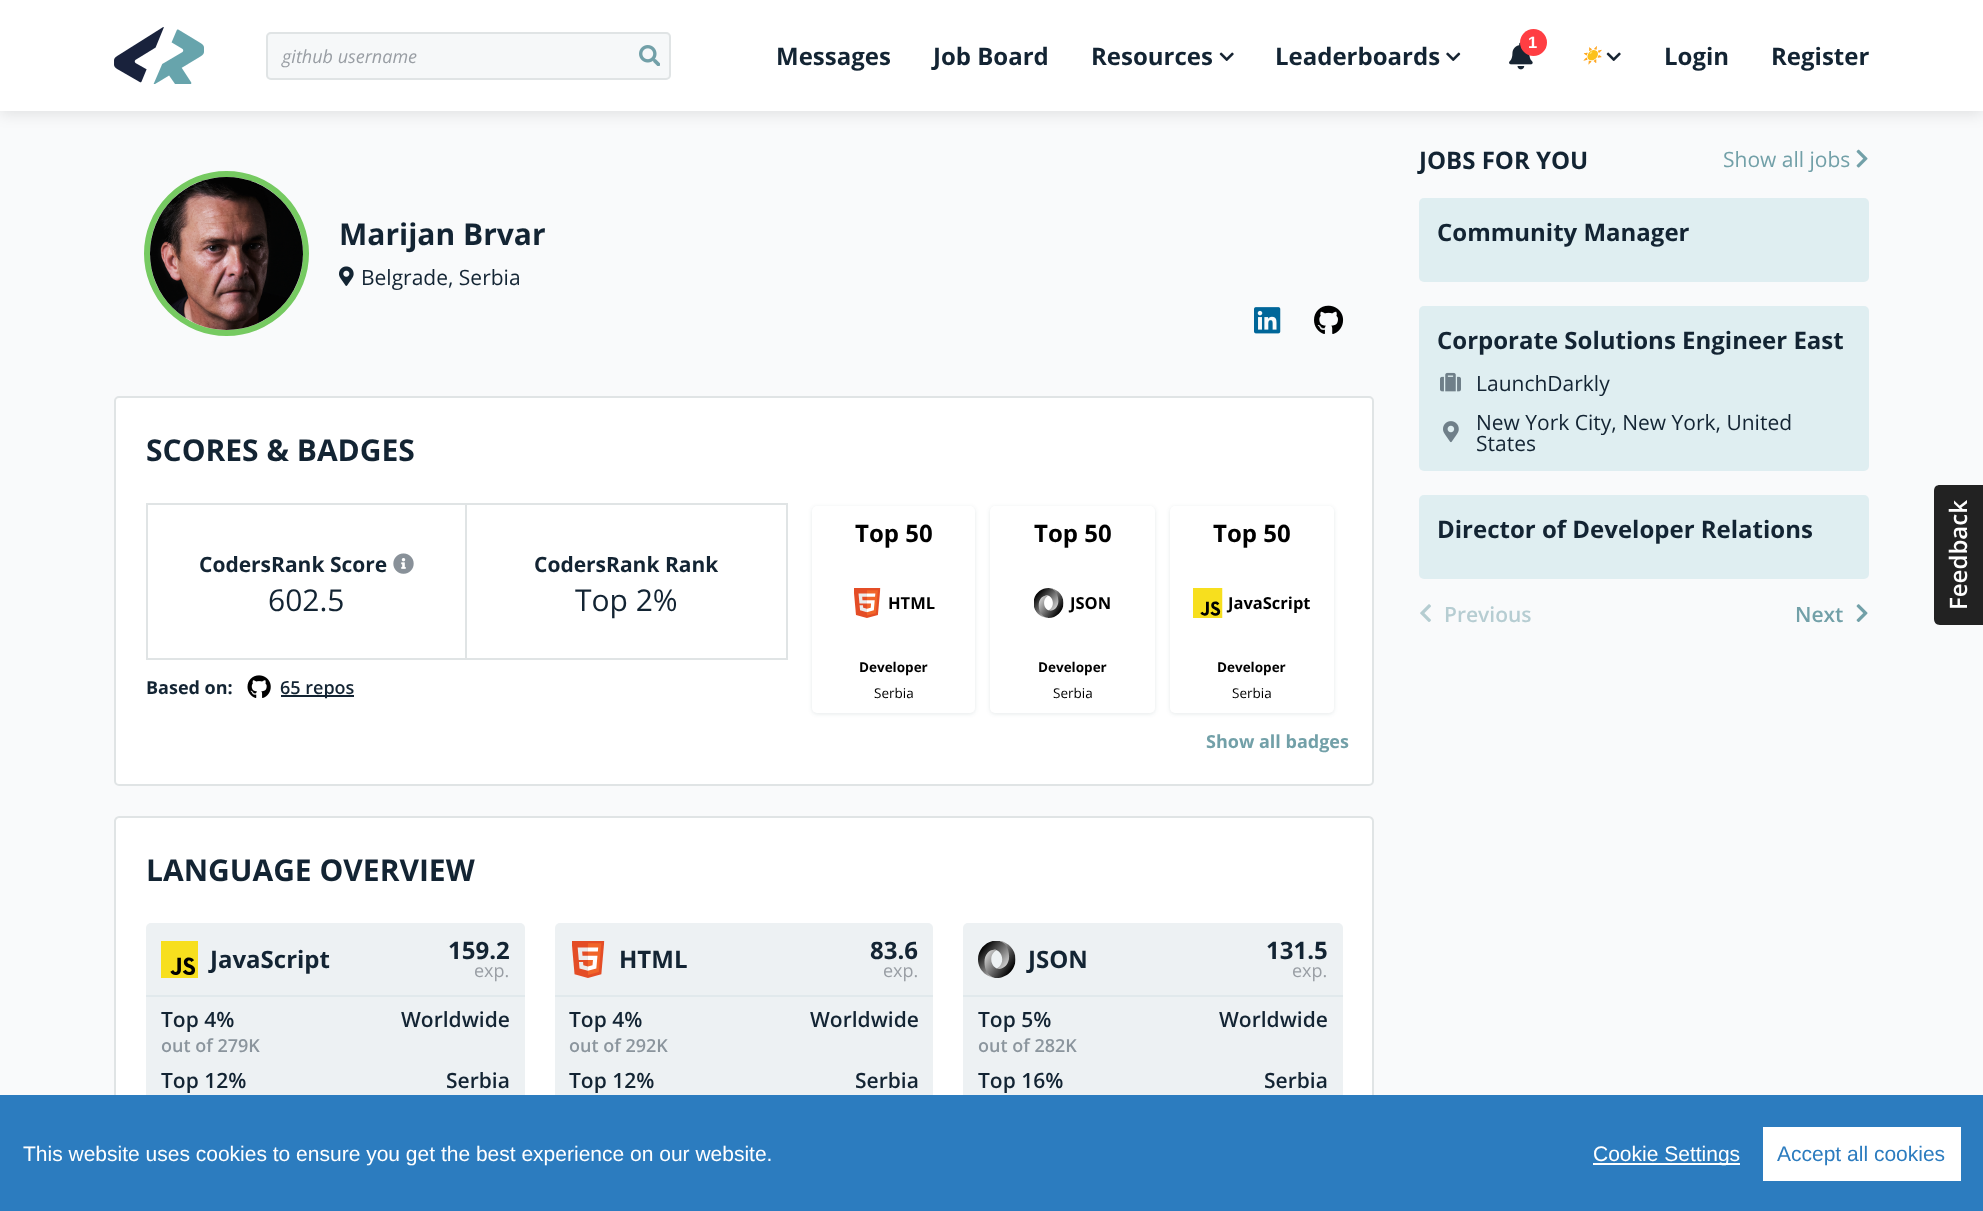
async function draw(canvas) {
  canvas.width = 1983
  canvas.height = 1211
  const ctx = canvas.getContext('2d')
  ctx.miterLimit = 4
  ctx.fontKerning = 'normal'
  async function loadImage(src) {
    const img = new Image()
    img.src = src
    await img.decode()
    return img
  }

  ctx.fillStyle = '#f9fafb'
  ctx.fillRect(0, 0, 1983, 1211)
  ctx.fillStyle = '#0000001a'
  ctx.filter = 'blur(7.5px)'
  ctx.beginPath()
  ctx.rect(0, 3, 1983, 111)
  ctx.fill()
  ctx.filter = 'none'
  ctx.fillStyle = '#fff'
  ctx.fillRect(0, 0, 1983, 111)
  ctx.drawImage(await loadImage('image0.png'), 114, 27, 90, 57)
  ctx.fillStyle = '#f6f8f9'
  ctx.beginPath()
  ctx.roundRect(266, 32, 405, 48, 5)
  ctx.fill()
  ctx.drawImage(await loadImage('image1.png'), 639, 45, 21, 21)
  ctx.beginPath()
  ctx.roundRect(267, 33, 403, 46, 4)
  ctx.strokeStyle = '#e0e4e5'
  ctx.lineWidth = 2
  ctx.stroke()
  ctx.font = 'italic 18px Open Sans'
  ctx.fillStyle = '#999ea4'
  ctx.fillText('github username', 282, 63)
  ctx.drawImage(await loadImage('image2.png'), 1509, 42, 24, 28)
  ctx.fillStyle = '#ff3e43'
  ctx.beginPath()
  ctx.arc(1533.5, 42.5, 13.5, 0, 2 * Math.PI)
  ctx.fill()
  ctx.font = 'bold 16.5px Liberation Sans'
  ctx.fillStyle = '#fff'
  ctx.fillText('1', 1528, 48)
  ctx.font = 'bold 24px Open Sans'
  ctx.fillStyle = '#132433'
  ctx.fillText('Messages', 776, 65)
  ctx.fillText('Job Board', 933, 65)
  ctx.fillText('Resources', 1091, 65)
  ctx.drawImage(await loadImage('image3.png'), 1219, 52, 15, 9)
  ctx.fillText('Leaderboards', 1275, 65)
  ctx.drawImage(await loadImage('image4.png'), 1446, 52, 15, 9)
  ctx.font = 'italic bold 16.5px Noto Color Emoji'
  ctx.fillText('☀️', 1581, 61)
  ctx.drawImage(await loadImage('image3.png'), 1606, 52, 15, 9)
  ctx.font = 'bold 24px Open Sans'
  ctx.fillText('Login', 1664, 65)
  ctx.fillText('Register', 1771, 65)
  ctx.fillStyle = '#fff'
  ctx.beginPath()
  ctx.arc(226.5, 253.5, 79.5, 0, 2 * Math.PI)
  ctx.fill()
  ctx.strokeStyle = '#76ca61'
  ctx.lineWidth = 6
  ctx.stroke()
  ctx.drawImage(await loadImage('image5.png'), 150, 177, 153, 153)
  ctx.font = 'bold 30px Open Sans'
  ctx.fillStyle = '#132433'
  ctx.fillText('Marijan Brvar', 339, 245)
  ctx.drawImage(await loadImage('image6.png'), 339, 266, 15, 20)
  ctx.font = '21px Open Sans'
  ctx.fillText('Belgrade, Serbia', 361, 285)
  ctx.drawImage(await loadImage('image7.png'), 1254, 307, 27, 27)
  ctx.drawImage(await loadImage('image8.png'), 1314, 305, 30, 29)
  ctx.fillStyle = '#fff'
  ctx.beginPath()
  ctx.roundRect(115, 397, 1258, 388, 4)
  ctx.fill()
  ctx.strokeStyle = '#e0e4e5'
  ctx.lineWidth = 2
  ctx.stroke()
  ctx.font = 'bold 30px Open Sans'
  ctx.fillStyle = '#132433'
  ctx.fillText('SCORES & BADGES', 146, 461)
  ctx.strokeRect(147, 504, 640, 155)
  ctx.fillStyle = '#e0e4e5'
  ctx.fillRect(465, 504, 2, 155)
  ctx.font = 'bold 21px Open Sans'
  ctx.fillStyle = '#132433'
  ctx.fillText('CodersRank Score', 199, 572)
  ctx.drawImage(await loadImage('image9.png'), 393, 553, 21, 21)
  ctx.font = '30px Open Sans'
  ctx.fillText('602.5', 268, 611)
  ctx.font = 'bold 21px Open Sans'
  ctx.fillText('CodersRank Rank', 534, 572)
  ctx.font = '30px Open Sans'
  ctx.fillText('Top 2%', 575, 611)
  ctx.font = 'bold 18px Open Sans'
  ctx.fillText('Based on:', 146, 694)
  ctx.drawImage(await loadImage('image10.png'), 247, 675, 24, 23)
  ctx.fillRect(281, 695, 73, 2)
  ctx.font = '600 18px Open Sans'
  ctx.fillText('65 repos', 280, 694)
  ctx.fillStyle = '#0a32361a'
  ctx.filter = 'blur(2px)'
  ctx.beginPath()
  ctx.roundRect(812, 507, 163, 207, 5)
  ctx.fill()
  ctx.filter = 'none'
  ctx.fillStyle = '#fff'
  ctx.beginPath()
  ctx.roundRect(812, 506, 163, 207, 5)
  ctx.fill()
  ctx.font = 'bold 24px Open Sans'
  ctx.fillStyle = '#000'
  ctx.fillText('Top 50', 855, 542)
  ctx.drawImage(await loadImage('image11.png'), 854, 588, 27, 30)
  ctx.font = 'bold 16.5px Open Sans'
  ctx.fillText('HTML', 888, 609)
  ctx.font = 'bold 13.5px Open Sans'
  ctx.fillText('Developer', 859, 672)
  ctx.font = '13.5px Open Sans'
  ctx.fillText('Serbia', 874, 698)
  ctx.fillStyle = '#0a32361a'
  ctx.filter = 'blur(2px)'
  ctx.beginPath()
  ctx.roundRect(990, 507, 165, 207, 5)
  ctx.fill()
  ctx.filter = 'none'
  ctx.fillStyle = '#fff'
  ctx.beginPath()
  ctx.roundRect(990, 506, 165, 207, 5)
  ctx.fill()
  ctx.font = 'bold 24px Open Sans'
  ctx.fillStyle = '#000'
  ctx.fillText('Top 50', 1034, 542)
  ctx.drawImage(await loadImage('image12.png'), 1034, 588, 30, 30)
  ctx.font = 'bold 16.5px Open Sans'
  ctx.fillText('JSON', 1070, 609)
  ctx.font = 'bold 13.5px Open Sans'
  ctx.fillText('Developer', 1038, 672)
  ctx.font = '13.5px Open Sans'
  ctx.fillText('Serbia', 1053, 698)
  ctx.fillStyle = '#0a32361a'
  ctx.filter = 'blur(2px)'
  ctx.beginPath()
  ctx.roundRect(1170, 507, 164, 207, 5)
  ctx.fill()
  ctx.filter = 'none'
  ctx.fillStyle = '#fff'
  ctx.beginPath()
  ctx.roundRect(1170, 506, 164, 207, 5)
  ctx.fill()
  ctx.font = 'bold 24px Open Sans'
  ctx.fillStyle = '#000'
  ctx.fillText('Top 50', 1213, 542)
  ctx.drawImage(await loadImage('image13.png'), 1193, 588, 30, 30)
  ctx.font = 'bold 16.5px Open Sans'
  ctx.fillText('JavaScript', 1228, 609)
  ctx.font = 'bold 13.5px Open Sans'
  ctx.fillText('Developer', 1217, 672)
  ctx.font = '13.5px Open Sans'
  ctx.fillText('Serbia', 1232, 698)
  ctx.font = 'bold 18px Open Sans'
  ctx.fillStyle = '#72a0a8'
  ctx.fillText('Show all badges', 1206, 748)
  ctx.fillStyle = '#fff'
  ctx.beginPath()
  ctx.moveTo(119, 817)
  ctx.lineTo(1369, 817)
  ctx.bezierCurveTo(1371, 817, 1373, 819, 1373, 821)
  ctx.lineTo(1373, 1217)
  ctx.lineTo(115, 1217)
  ctx.lineTo(115, 821)
  ctx.bezierCurveTo(115, 819, 117, 817, 119, 817)
  ctx.closePath()
  ctx.fill()
  ctx.stroke()
  ctx.font = 'bold 30px Open Sans'
  ctx.fillStyle = '#132433'
  ctx.fillText('LANGUAGE OVERVIEW', 146, 881)
  ctx.fillStyle = '#edf1f3'
  ctx.beginPath()
  ctx.roundRect(146, 923, 379, 207, 5)
  ctx.fill()
  ctx.drawImage(await loadImage('image14.png'), 161, 941, 37, 37)
  ctx.font = 'bold 24px Open Sans'
  ctx.fillStyle = '#132433'
  ctx.fillText('JavaScript', 210, 968)
  ctx.fillText('159.2', 448, 959)
  ctx.font = '18px Open Sans'
  ctx.fillStyle = '#999ea4'
  ctx.fillText('exp.', 474, 977)
  ctx.fillStyle = '#e1e9ec'
  ctx.fillRect(146, 995, 379, 2)
  ctx.font = '600 21px Open Sans'
  ctx.fillStyle = '#132433'
  ctx.fillText('Top 4%', 161, 1027)
  ctx.font = '600 18px Open Sans'
  ctx.fillStyle = '#8b959d'
  ctx.fillText('out of 279K', 161, 1052)
  ctx.font = '600 21px Open Sans'
  ctx.fillStyle = '#132433'
  ctx.fillText('Worldwide', 401, 1027)
  ctx.fillText('Top 12%', 161, 1088)
  ctx.fillText('Serbia', 446, 1088)
  ctx.fillStyle = '#edf1f3'
  ctx.beginPath()
  ctx.roundRect(555, 923, 378, 207, 5)
  ctx.fill()
  ctx.drawImage(await loadImage('image15.png'), 572, 941, 33, 37)
  ctx.font = 'bold 24px Open Sans'
  ctx.fillStyle = '#132433'
  ctx.fillText('HTML', 619, 968)
  ctx.fillText('83.6', 870, 959)
  ctx.font = '18px Open Sans'
  ctx.fillStyle = '#999ea4'
  ctx.fillText('exp.', 883, 977)
  ctx.fillStyle = '#e1e9ec'
  ctx.fillRect(555, 995, 378, 2)
  ctx.font = '600 21px Open Sans'
  ctx.fillStyle = '#132433'
  ctx.fillText('Top 4%', 569, 1027)
  ctx.font = '600 18px Open Sans'
  ctx.fillStyle = '#8b959d'
  ctx.fillText('out of 292K', 569, 1052)
  ctx.font = '600 21px Open Sans'
  ctx.fillStyle = '#132433'
  ctx.fillText('Worldwide', 810, 1027)
  ctx.fillText('Top 12%', 569, 1088)
  ctx.fillText('Serbia', 855, 1088)
  ctx.fillStyle = '#edf1f3'
  ctx.beginPath()
  ctx.roundRect(963, 923, 380, 207, 5)
  ctx.fill()
  ctx.drawImage(await loadImage('image16.png'), 978, 941, 38, 37)
  ctx.font = 'bold 24px Open Sans'
  ctx.fillStyle = '#132433'
  ctx.fillText('JSON', 1028, 968)
  ctx.fillText('131.5', 1266, 959)
  ctx.font = '18px Open Sans'
  ctx.fillStyle = '#999ea4'
  ctx.fillText('exp.', 1292, 977)
  ctx.fillStyle = '#e1e9ec'
  ctx.fillRect(963, 995, 380, 2)
  ctx.font = '600 21px Open Sans'
  ctx.fillStyle = '#132433'
  ctx.fillText('Top 5%', 978, 1027)
  ctx.font = '600 18px Open Sans'
  ctx.fillStyle = '#8b959d'
  ctx.fillText('out of 282K', 978, 1052)
  ctx.font = '600 21px Open Sans'
  ctx.fillStyle = '#132433'
  ctx.fillText('Worldwide', 1219, 1027)
  ctx.fillText('Top 16%', 978, 1088)
  ctx.fillText('Serbia', 1264, 1088)
  ctx.font = 'bold 24px Open Sans'
  ctx.fillText('JOBS FOR YOU', 1419, 169)
  ctx.font = '21px Open Sans'
  ctx.fillStyle = '#72a0a8'
  ctx.fillText('Show all jobs', 1723, 167)
  ctx.drawImage(await loadImage('image17.png'), 1856, 149, 12, 19)
  ctx.fillStyle = '#dfeef1'
  ctx.beginPath()
  ctx.roundRect(1419, 198, 450, 84, 5)
  ctx.fill()
  ctx.font = 'bold 24px Open Sans'
  ctx.fillStyle = '#132433'
  ctx.fillText('Community Manager', 1437, 241)
  ctx.fillStyle = '#dfeef1'
  ctx.beginPath()
  ctx.roundRect(1419, 306, 450, 165, 5)
  ctx.fill()
  ctx.fillStyle = '#132433'
  ctx.fillText('Corporate Solutions Engineer East', 1437, 349)
  ctx.drawImage(await loadImage('image18.png'), 1440, 372, 21, 20)
  ctx.font = '21px Open Sans'
  ctx.fillText('LaunchDarkly', 1476, 391)
  ctx.drawImage(await loadImage('image19.png'), 1443, 421, 16, 22)
  ctx.fillText('New York City, New York, United', 1476, 430)
  ctx.fillText('States', 1476, 451)
  ctx.fillStyle = '#dfeef1'
  ctx.beginPath()
  ctx.roundRect(1419, 495, 450, 84, 5)
  ctx.fill()
  ctx.font = 'bold 24px Open Sans'
  ctx.fillStyle = '#132433'
  ctx.fillText('Director of Developer Relations', 1437, 538)
  ctx.drawImage(await loadImage('image20.png'), 1420, 604, 11, 18)
  ctx.font = '600 21px Open Sans'
  ctx.fillStyle = '#b6cdd2'
  ctx.fillText('Previous', 1444, 622)
  ctx.fillStyle = '#72a0a8'
  ctx.fillText('Next', 1795, 622)
  ctx.drawImage(await loadImage('image21.png'), 1856, 604, 12, 18)
  ctx.fillStyle = '#222'
  ctx.beginPath()
  ctx.moveTo(1934, 619)
  ctx.lineTo(1934, 491)
  ctx.bezierCurveTo(1934, 487, 1936, 485, 1940, 485)
  ctx.lineTo(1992, 485)
  ctx.lineTo(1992, 625)
  ctx.lineTo(1940, 625)
  ctx.bezierCurveTo(1936, 625, 1934, 622, 1934, 619)
  ctx.closePath()
  ctx.fill()
  ctx.font = '600 24px Open Sans'
  ctx.fillStyle = '#fff'
  ctx.save()
  ctx.translate(1967, 610)
  ctx.rotate(-90 * Math.PI / 180)
  ctx.fillText('Feedback', 0, 0)
  ctx.restore()
  ctx.fillStyle = '#2c7cbf'
  ctx.fillRect(0, 1095, 1983, 116)
  ctx.font = '21px Liberation Sans'
  ctx.fillStyle = '#fff'
  ctx.fillText('This website uses cookies to ensure you get the best experience on our website.', 23, 1161)
  ctx.fillRect(1593, 1163, 147, 2)
  ctx.fillText('Cookie Settings', 1593, 1161)
  ctx.fillRect(1763, 1127, 198, 54)
  ctx.fillStyle = '#2c7cbf'
  ctx.fillText('Accept all cookies', 1777, 1161)
}

draw(document.querySelector('canvas'))
